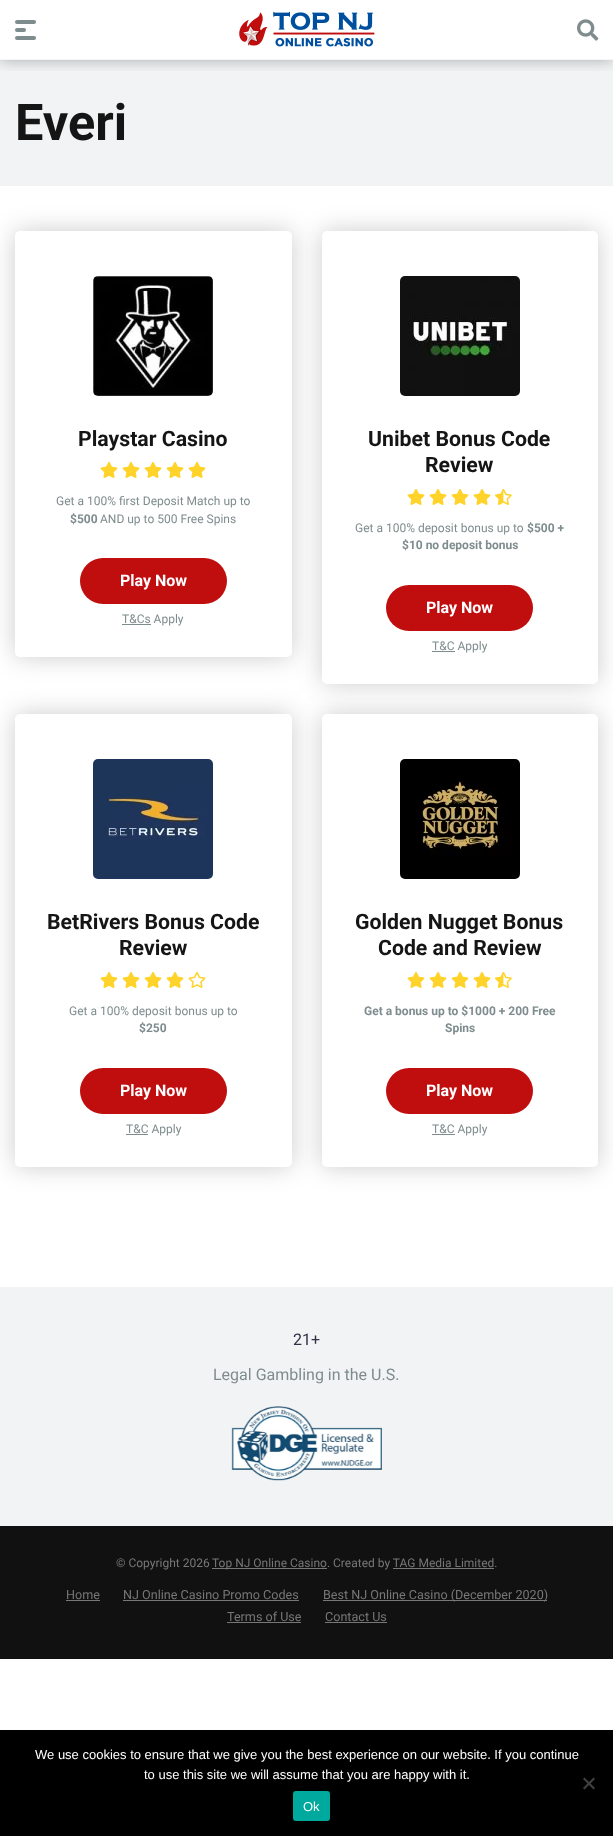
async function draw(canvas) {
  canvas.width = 613
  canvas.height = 1836
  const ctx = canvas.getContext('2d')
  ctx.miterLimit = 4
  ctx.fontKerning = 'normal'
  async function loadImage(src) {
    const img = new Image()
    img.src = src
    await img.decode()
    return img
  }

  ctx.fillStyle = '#fff'
  ctx.fillRect(0, 0, 613, 1836)
  ctx.fillStyle = '#f1f3f4'
  ctx.fillRect(0, 60, 613, 126)
  ctx.save()
  ctx.beginPath()
  ctx.rect(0, 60, 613, 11)
  ctx.clip()
  ctx.fillStyle = '#0000004d'
  ctx.filter = 'blur(7.5px)'
  ctx.beginPath()
  ctx.rect(0, 0, 613, 60)
  ctx.fill()
  ctx.filter = 'none'
  ctx.restore()
  ctx.fillStyle = '#f5f6fa'
  ctx.fillRect(0, 59, 613, 1)
  ctx.fillStyle = '#7f8c8d'
  ctx.beginPath()
  ctx.roundRect(15, 20, 21, 4, 2)
  ctx.fill()
  ctx.beginPath()
  ctx.roundRect(15, 28, 11, 4, 2)
  ctx.fill()
  ctx.beginPath()
  ctx.roundRect(15, 36, 21, 4, 2)
  ctx.fill()
  ctx.drawImage(await loadImage('image0.png'), 239, 11, 136, 36)
  ctx.drawImage(await loadImage('image1.png'), 577, 19, 22, 22)
  ctx.font = 'bold 50.5px Roboto'
  ctx.fillStyle = '#151515'
  ctx.fillText('Everi', 15, 140)
  ctx.fillStyle = '#00000033'
  ctx.filter = 'blur(12.5px)'
  ctx.beginPath()
  ctx.roundRect(15, 231, 277, 426, 5)
  ctx.fill()
  ctx.filter = 'none'
  ctx.fillStyle = '#fff'
  ctx.beginPath()
  ctx.roundRect(15, 231, 277, 426, 5)
  ctx.fill()
  ctx.drawImage(await loadImage('image2.png'), 93, 276, 120, 120)
  ctx.font = 'bold 21.25px Roboto'
  ctx.fillStyle = '#151515'
  ctx.fillText('Playstar Casino', 78, 446)
  ctx.drawImage(await loadImage('image3.png'), 100, 462, 18, 16)
  ctx.drawImage(await loadImage('image3.png'), 122, 462, 18, 16)
  ctx.drawImage(await loadImage('image3.png'), 144, 462, 18, 16)
  ctx.drawImage(await loadImage('image3.png'), 166, 462, 18, 16)
  ctx.drawImage(await loadImage('image3.png'), 188, 462, 18, 16)
  ctx.font = '12px Roboto'
  ctx.fillStyle = '#7f8c8d'
  ctx.fillText('Get a 100% first Deposit Match up to', 56, 505)
  ctx.font = 'bold 12px Roboto'
  ctx.fillText('$500', 70, 523)
  ctx.font = '12px Roboto'
  ctx.fillText('AND up to 500 Free Spins', 100, 523)
  ctx.fillStyle = '#c00d0e'
  ctx.beginPath()
  ctx.roundRect(80, 558, 147, 46, 23)
  ctx.fill()
  ctx.font = 'bold 16px Roboto'
  ctx.fillStyle = '#fff'
  ctx.fillText('Play Now', 120, 586)
  ctx.fillStyle = '#7f8c8d'
  ctx.fillRect(122, 624, 29, 1)
  ctx.font = '12px Roboto'
  ctx.fillText('T&Cs Apply', 122, 623)
  ctx.fillStyle = '#00000033'
  ctx.filter = 'blur(12.5px)'
  ctx.beginPath()
  ctx.roundRect(322, 231, 276, 453, 5)
  ctx.fill()
  ctx.filter = 'none'
  ctx.fillStyle = '#fff'
  ctx.beginPath()
  ctx.roundRect(322, 231, 276, 453, 5)
  ctx.fill()
  ctx.drawImage(await loadImage('image4.png'), 400, 276, 120, 120)
  ctx.font = 'bold 21.25px Roboto'
  ctx.fillStyle = '#151515'
  ctx.fillText('Unibet Bonus Code', 368, 446)
  ctx.fillText('Review', 425, 472)
  ctx.drawImage(await loadImage('image3.png'), 407, 489, 18, 16)
  ctx.drawImage(await loadImage('image3.png'), 429, 489, 18, 16)
  ctx.drawImage(await loadImage('image3.png'), 451, 489, 18, 16)
  ctx.drawImage(await loadImage('image3.png'), 473, 489, 18, 16)
  ctx.drawImage(await loadImage('image5.png'), 495, 489, 17, 16)
  ctx.font = '12px Roboto'
  ctx.fillStyle = '#7f8c8d'
  ctx.fillText('Get a 100% deposit bonus up to', 355, 532)
  ctx.font = 'bold 12px Roboto'
  ctx.fillText('$500 +', 527, 532)
  ctx.fillText('$10 no deposit bonus', 402, 549)
  ctx.fillStyle = '#c00d0e'
  ctx.beginPath()
  ctx.roundRect(386, 585, 147, 46, 23)
  ctx.fill()
  ctx.font = 'bold 16px Roboto'
  ctx.fillStyle = '#fff'
  ctx.fillText('Play Now', 426, 613)
  ctx.fillStyle = '#7f8c8d'
  ctx.fillRect(432, 651, 23, 1)
  ctx.font = '12px Roboto'
  ctx.fillText('T&C Apply', 432, 650)
  ctx.fillStyle = '#00000033'
  ctx.filter = 'blur(12.5px)'
  ctx.beginPath()
  ctx.roundRect(15, 714, 277, 453, 5)
  ctx.fill()
  ctx.filter = 'none'
  ctx.fillStyle = '#fff'
  ctx.beginPath()
  ctx.roundRect(15, 714, 277, 453, 5)
  ctx.fill()
  ctx.drawImage(await loadImage('image6.png'), 93, 759, 120, 120)
  ctx.font = 'bold 21.25px Roboto'
  ctx.fillStyle = '#151515'
  ctx.fillText('BetRivers Bonus Code', 47, 929)
  ctx.fillText('Review', 119, 955)
  ctx.drawImage(await loadImage('image3.png'), 100, 972, 18, 16)
  ctx.drawImage(await loadImage('image3.png'), 122, 972, 18, 16)
  ctx.drawImage(await loadImage('image3.png'), 144, 972, 18, 16)
  ctx.drawImage(await loadImage('image3.png'), 166, 972, 18, 16)
  ctx.drawImage(await loadImage('image7.png'), 188, 972, 18, 16)
  ctx.font = '12px Roboto'
  ctx.fillStyle = '#7f8c8d'
  ctx.fillText('Get a 100% deposit bonus up to', 69, 1015)
  ctx.font = 'bold 12px Roboto'
  ctx.fillText('$250', 139, 1032)
  ctx.fillStyle = '#c00d0e'
  ctx.beginPath()
  ctx.roundRect(80, 1068, 147, 46, 23)
  ctx.fill()
  ctx.font = 'bold 16px Roboto'
  ctx.fillStyle = '#fff'
  ctx.fillText('Play Now', 120, 1096)
  ctx.fillStyle = '#7f8c8d'
  ctx.fillRect(126, 1134, 22, 1)
  ctx.font = '12px Roboto'
  ctx.fillText('T&C Apply', 126, 1133)
  ctx.fillStyle = '#00000033'
  ctx.filter = 'blur(12.5px)'
  ctx.beginPath()
  ctx.roundRect(322, 714, 276, 453, 5)
  ctx.fill()
  ctx.filter = 'none'
  ctx.fillStyle = '#fff'
  ctx.beginPath()
  ctx.roundRect(322, 714, 276, 453, 5)
  ctx.fill()
  ctx.drawImage(await loadImage('image8.png'), 400, 759, 120, 120)
  ctx.font = 'bold 21.25px Roboto'
  ctx.fillStyle = '#151515'
  ctx.fillText('Golden Nugget Bonus', 355, 929)
  ctx.fillText('Code and Review', 378, 955)
  ctx.drawImage(await loadImage('image3.png'), 407, 972, 18, 16)
  ctx.drawImage(await loadImage('image3.png'), 429, 972, 18, 16)
  ctx.drawImage(await loadImage('image3.png'), 451, 972, 18, 16)
  ctx.drawImage(await loadImage('image3.png'), 473, 972, 18, 16)
  ctx.drawImage(await loadImage('image5.png'), 495, 972, 17, 16)
  ctx.font = 'bold 12px Roboto'
  ctx.fillStyle = '#7f8c8d'
  ctx.fillText('Get a bonus up to $1000 + 200 Free', 364, 1015)
  ctx.fillText('Spins', 445, 1032)
  ctx.fillStyle = '#c00d0e'
  ctx.beginPath()
  ctx.roundRect(386, 1068, 147, 46, 23)
  ctx.fill()
  ctx.font = 'bold 16px Roboto'
  ctx.fillStyle = '#fff'
  ctx.fillText('Play Now', 426, 1096)
  ctx.fillStyle = '#7f8c8d'
  ctx.fillRect(432, 1134, 23, 1)
  ctx.font = '12px Roboto'
  ctx.fillText('T&C Apply', 432, 1133)
  ctx.fillStyle = '#f1f3f4'
  ctx.fillRect(0, 1287, 613, 239)
  ctx.font = '16px Roboto'
  ctx.fillStyle = '#2e3246'
  ctx.fillText('21+', 293, 1345)
  ctx.fillStyle = '#7f8c8d'
  ctx.fillText('Legal Gambling in the U.S.', 213, 1380)
  ctx.drawImage(await loadImage('image9.png'), 231, 1406, 151, 75)
  ctx.fillStyle = '#111'
  ctx.fillRect(0, 1526, 613, 133)
  ctx.font = '12px Roboto'
  ctx.fillStyle = '#777'
  ctx.fillText('© Copyright 2026', 116, 1567)
  ctx.fillRect(212, 1568, 115, 1)
  ctx.fillText('Top NJ Online Casino. Created by TAG Media Limited.', 212, 1567)
  ctx.fillRect(393, 1568, 101, 1)
  ctx.font = '12.6px Roboto'
  ctx.fillText('Home', 66, 1599)
  ctx.fillRect(66, 1600, 34, 1)
  ctx.fillText('NJ Online Casino Promo Codes', 123, 1599)
  ctx.fillRect(123, 1600, 176, 1)
  ctx.fillRect(323, 1600, 224, 1)
  ctx.fillText('Best NJ Online Casino (December 2020)', 323, 1599)
  ctx.fillText('Terms of Use', 227, 1621)
  ctx.fillRect(227, 1622, 74, 1)
  ctx.fillText('Contact Us', 325, 1621)
  ctx.fillRect(325, 1622, 62, 1)
  ctx.fillStyle = '#000'
  ctx.fillRect(0, 1730, 613, 106)
  ctx.font = '13px Liberation Sans'
  ctx.fillStyle = '#fff'
  ctx.fillText('We use cookies to ensure that we give you the best experience on our website. If you continue', 35, 1759)
  ctx.fillText('to use this site we will assume that you are happy with it.', 144, 1779)
  ctx.fillStyle = '#404040'
  ctx.beginPath()
  ctx.moveTo(593.5, 1777.5)
  ctx.lineTo(595, 1779)
  ctx.lineTo(584.5, 1789.5)
  ctx.lineTo(583, 1788)
  ctx.closePath()
  ctx.fill()
  ctx.beginPath()
  ctx.moveTo(583, 1779)
  ctx.lineTo(584.5, 1777.5)
  ctx.lineTo(595, 1788)
  ctx.lineTo(593.5, 1789.5)
  ctx.closePath()
  ctx.fill()
  ctx.fillStyle = '#00a99d'
  ctx.beginPath()
  ctx.roundRect(293, 1791, 37, 30, 3)
  ctx.fill()
  ctx.fillStyle = '#fff'
  ctx.fillText('Ok', 303, 1811)
}

draw(document.querySelector('canvas'))
